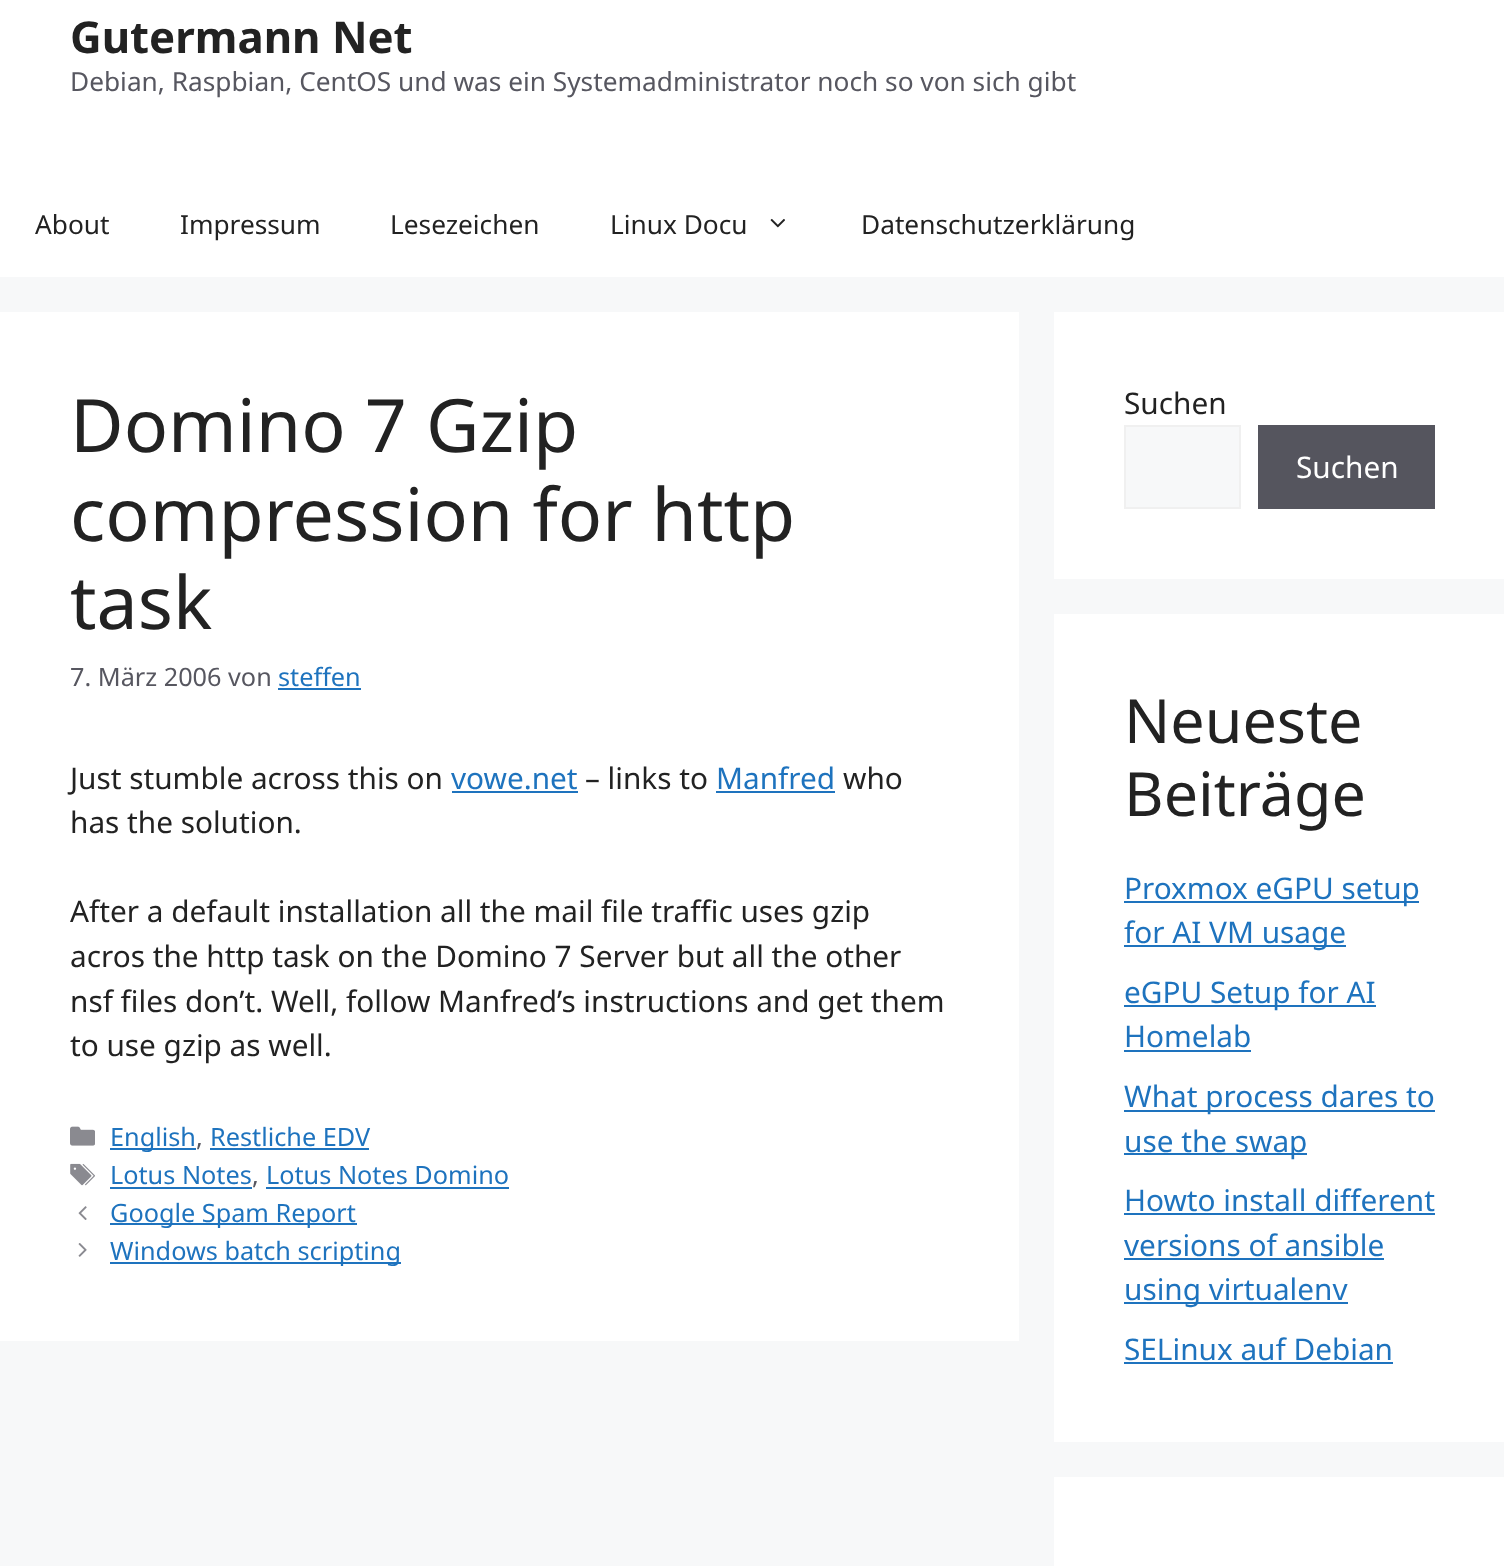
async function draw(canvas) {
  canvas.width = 1504
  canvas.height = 1566
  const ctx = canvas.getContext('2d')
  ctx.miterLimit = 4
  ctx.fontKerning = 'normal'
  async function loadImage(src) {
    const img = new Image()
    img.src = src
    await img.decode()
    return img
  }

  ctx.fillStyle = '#f7f8f9'
  ctx.fillRect(0, 0, 1504, 1566)
  ctx.fillStyle = '#fff'
  ctx.fillRect(0, 0, 1504, 277)
  ctx.font = 'bold 43.75px Noto Sans'
  ctx.fillStyle = '#222'
  ctx.fillText('Gutermann Net', 70, 53)
  ctx.font = '26.25px Noto Sans'
  ctx.fillStyle = '#575760'
  ctx.fillText('Debian, Raspbian, CentOS und was ein Systemadministrator noch so von sich gibt', 70, 91)
  ctx.fillStyle = '#222'
  ctx.fillText('About', 35, 234)
  ctx.fillText('Impressum', 180, 234)
  ctx.fillText('Lesezeichen', 390, 234)
  ctx.fillText('Linux Docu', 610, 234)
  ctx.drawImage(await loadImage('image0.png'), 770, 218, 15, 10)
  ctx.fillText('Datenschutzerklärung', 861, 234)
  ctx.fillStyle = '#fff'
  ctx.fillRect(0, 312, 1019, 1029)
  ctx.font = '73.5px Noto Sans'
  ctx.fillStyle = '#222'
  ctx.fillText('Domino 7 Gzip', 70, 452)
  ctx.fillText('compression for http', 70, 541)
  ctx.fillText('task', 70, 629)
  ctx.font = '25.25px Noto Sans'
  ctx.fillStyle = '#575760'
  ctx.fillText('7. März 2006 von', 70, 686)
  ctx.fillStyle = '#1e73be'
  ctx.fillText('steffen', 278, 686)
  ctx.fillRect(278, 688, 83, 2)
  ctx.font = '29.75px Noto Sans'
  ctx.fillStyle = '#222'
  ctx.fillText('Just stumble across this on', 70, 789)
  ctx.fillStyle = '#1e73be'
  ctx.fillText('vowe.net', 451, 789)
  ctx.fillRect(452, 791, 126, 2)
  ctx.fillStyle = '#222'
  ctx.fillText('– links to', 585, 789)
  ctx.fillStyle = '#1e73be'
  ctx.fillText('Manfred', 716, 789)
  ctx.fillRect(716, 791, 119, 2)
  ctx.fillStyle = '#222'
  ctx.fillText('who', 843, 789)
  ctx.fillText('has the solution.', 70, 833)
  ctx.fillText('After a default installation all the mail file traffic uses gzip', 70, 922)
  ctx.fillText('acros the http task on the Domino 7 Server but all the other', 70, 967)
  ctx.fillText('nsf files don’t. Well, follow Manfred’s instructions and get them', 70, 1012)
  ctx.fillText('to use gzip as well.', 70, 1056)
  ctx.drawImage(await loadImage('image1.png'), 70, 1126, 25, 20)
  ctx.fillStyle = '#1e73be'
  ctx.fillRect(110, 1148, 86, 2)
  ctx.font = '25.25px Noto Sans'
  ctx.fillText('English', 110, 1146)
  ctx.fillStyle = '#575760'
  ctx.fillText(',', 196, 1146)
  ctx.fillStyle = '#1e73be'
  ctx.fillText('Restliche EDV', 210, 1146)
  ctx.fillRect(210, 1148, 159, 2)
  ctx.drawImage(await loadImage('image2.png'), 70, 1163, 25, 23)
  ctx.fillText('Lotus Notes', 110, 1184)
  ctx.fillRect(110, 1187, 142, 2)
  ctx.fillStyle = '#575760'
  ctx.fillText(',', 252, 1184)
  ctx.fillStyle = '#1e73be'
  ctx.fillText('Lotus Notes Domino', 266, 1184)
  ctx.fillRect(266, 1187, 243, 2)
  ctx.drawImage(await loadImage('image3.png'), 78, 1206, 9, 14)
  ctx.fillRect(110, 1223, 247, 2)
  ctx.fillText('Google Spam Report', 110, 1222)
  ctx.drawImage(await loadImage('image4.png'), 78, 1243, 9, 14)
  ctx.fillRect(110, 1262, 291, 2)
  ctx.fillText('Windows batch scripting', 110, 1260)
  ctx.fillStyle = '#fff'
  ctx.fillRect(1054, 312, 450, 267)
  ctx.font = '29.75px Noto Sans'
  ctx.fillStyle = '#222'
  ctx.fillText('Suchen', 1124, 414)
  ctx.fillStyle = '#f7f8f9'
  ctx.beginPath()
  ctx.rect(1125, 426, 115, 82)
  ctx.fill()
  ctx.strokeStyle = '#f0f0f0'
  ctx.lineWidth = 2
  ctx.stroke()
  ctx.fillStyle = '#55555e'
  ctx.fillRect(1258, 425, 177, 84)
  ctx.fillStyle = '#fff'
  ctx.fillText('Suchen', 1296, 478)
  ctx.fillRect(1054, 614, 450, 828)
  ctx.font = '61px Noto Sans'
  ctx.fillStyle = '#222'
  ctx.fillText('Neueste', 1124, 743)
  ctx.fillText('Beiträge', 1124, 816)
  ctx.fillStyle = '#1e73be'
  ctx.fillRect(1124, 901, 295, 2)
  ctx.font = '29.75px Noto Sans'
  ctx.fillText('Proxmox eGPU setup', 1124, 899)
  ctx.fillRect(1124, 945, 222, 2)
  ctx.fillText('for AI VM usage', 1124, 943)
  ctx.fillRect(1124, 1005, 252, 2)
  ctx.fillText('eGPU Setup for AI', 1124, 1003)
  ctx.fillText('Homelab', 1124, 1047)
  ctx.fillRect(1124, 1050, 127, 2)
  ctx.fillRect(1124, 1110, 311, 2)
  ctx.fillText('What process dares to', 1124, 1107)
  ctx.fillRect(1124, 1153, 183, 2)
  ctx.fillText('use the swap', 1124, 1152)
  ctx.fillText('Howto install different', 1124, 1211)
  ctx.fillRect(1124, 1213, 311, 2)
  ctx.fillText('versions of ansible', 1124, 1256)
  ctx.fillRect(1124, 1258, 260, 2)
  ctx.fillRect(1124, 1302, 224, 2)
  ctx.fillText('using virtualenv', 1124, 1300)
  ctx.fillText('SELinux auf Debian', 1124, 1360)
  ctx.fillRect(1124, 1362, 269, 2)
  ctx.fillStyle = '#fff'
  ctx.fillRect(1054, 1477, 450, 89)
}

draw(document.querySelector('canvas'))
